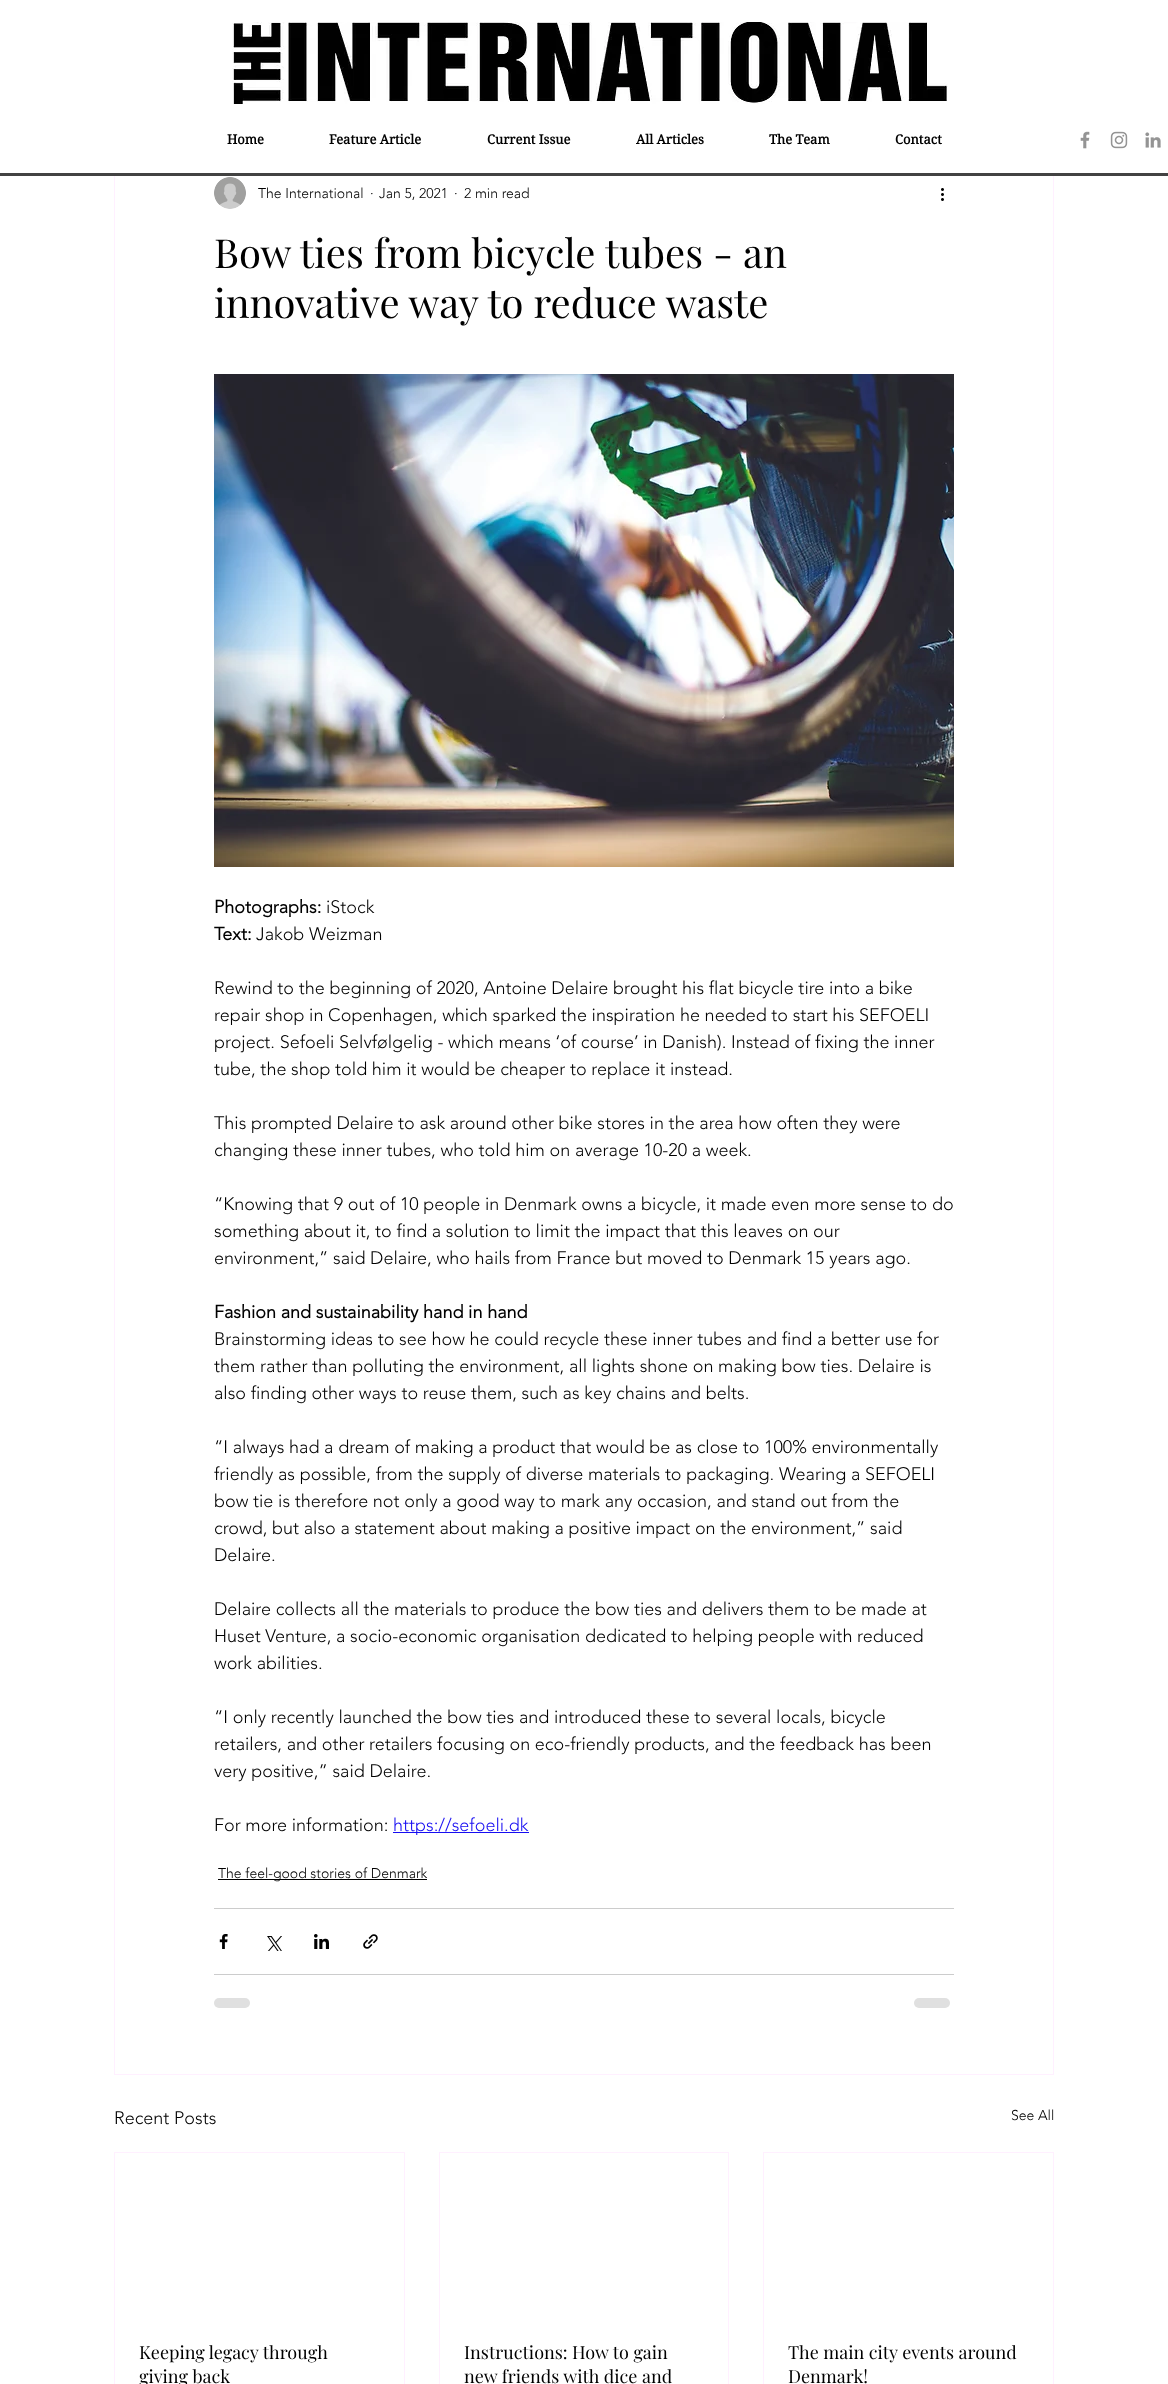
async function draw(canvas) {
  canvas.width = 1168
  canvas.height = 2384
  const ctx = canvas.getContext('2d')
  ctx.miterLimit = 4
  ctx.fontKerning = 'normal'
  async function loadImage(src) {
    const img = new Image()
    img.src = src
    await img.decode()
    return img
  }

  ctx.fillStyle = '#fff'
  ctx.fillRect(0, 0, 1168, 2384)
  ctx.strokeStyle = '#fff0ff'
  ctx.strokeRect(114.5, 116.5, 939, 1958)
  ctx.fillRect(114, 116, 940, 57)
  ctx.drawImage(await loadImage('image0.png'), 232, 22, 716, 82)
  ctx.font = 'bold 13px "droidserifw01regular"'
  ctx.fillStyle = '#000'
  ctx.fillText('Home', 227, 144)
  ctx.fillText('Feature Article', 329, 144)
  ctx.fillText('Current Issue', 487, 144)
  ctx.fillText('All Articles', 636, 144)
  ctx.fillText('The Team', 769, 144)
  ctx.fillText('Contact', 895, 144)
  ctx.drawImage(await loadImage('image1.png'), 1080, 131, 10, 18)
  ctx.drawImage(await loadImage('image2.png'), 1110, 131, 18, 18)
  ctx.drawImage(await loadImage('image3.png'), 1145, 132, 16, 16)
  ctx.fillStyle = '#424242'
  ctx.fillRect(0, 173, 1168, 3)
  ctx.drawImage(await loadImage('image4.png'), 214, 177, 32, 32)
  ctx.font = '300 14px "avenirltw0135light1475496"'
  ctx.fillStyle = '#000'
  ctx.fillText('The International', 258, 198)
  ctx.fillText('·', 370, 198)
  ctx.fillText('Jan 5, 2021', 379, 198)
  ctx.fillText('·', 454, 198)
  ctx.fillText('2 min read', 464, 198)
  ctx.drawImage(await loadImage('image5.png'), 941, 188, 3, 13)
  ctx.font = '40px Playfair Display'
  ctx.fillText('Bow ties from bicycle tubes - an', 214, 268)
  ctx.fillText('innovative way to reduce waste', 214, 318)
  ctx.drawImage(await loadImage('image6.png'), 214, 374, 740, 493)
  ctx.font = 'bold 18px "avenirltw0135light1475496"'
  ctx.fillText('Photographs:', 214, 913)
  ctx.font = '300 18px "avenirltw0135light1475496"'
  ctx.fillText('iStock', 326, 913)
  ctx.font = 'bold 18px "avenirltw0135light1475496"'
  ctx.fillText('Text:', 214, 940)
  ctx.font = '300 18px "avenirltw0135light1475496"'
  ctx.fillText('Jakob Weizman', 256, 940)
  ctx.fillText('Rewind to the beginning of 2020, Antoine Delaire brought his flat bicycle tire into a bike', 214, 994)
  ctx.fillText('repair shop in Copenhagen, which sparked the inspiration he needed to start his SEFOELI', 214, 1021)
  ctx.fillText('project. Sefoeli Selvfølgelig - which means ‘of course’ in Danish). Instead of fixing the inner', 214, 1048)
  ctx.fillText('tube, the shop told him it would be cheaper to replace it instead.', 214, 1075)
  ctx.fillText('This prompted Delaire to ask around other bike stores in the area how often they were', 214, 1129)
  ctx.fillText('changing these inner tubes, who told him on average 10-20 a week.', 214, 1156)
  ctx.fillText('“Knowing that 9 out of 10 people in Denmark owns a bicycle, it made even more sense to do', 214, 1210)
  ctx.fillText('something about it, to find a solution to limit the impact that this leaves on our', 214, 1237)
  ctx.fillText('environment,” said Delaire, who hails from France but moved to Denmark 15 years ago.', 214, 1264)
  ctx.font = 'bold 18px "avenirltw0135light1475496"'
  ctx.fillText('Fashion and sustainability hand in hand', 214, 1318)
  ctx.font = '300 18px "avenirltw0135light1475496"'
  ctx.fillText('Brainstorming ideas to see how he could recycle these inner tubes and find a better use for', 214, 1345)
  ctx.fillText('them rather than polluting the environment, all lights shone on making bow ties. Delaire is', 214, 1372)
  ctx.fillText('also finding other ways to reuse them, such as key chains and belts.', 214, 1399)
  ctx.fillText('“I always had a dream of making a product that would be as close to 100% environmentally', 214, 1453)
  ctx.fillText('friendly as possible, from the supply of diverse materials to packaging. Wearing a SEFOELI', 214, 1480)
  ctx.fillText('bow tie is therefore not only a good way to mark any occasion, and stand out from the', 214, 1507)
  ctx.fillText('crowd, but also a statement about making a positive impact on the environment,” said', 214, 1534)
  ctx.fillText('Delaire.', 214, 1561)
  ctx.fillText('Delaire collects all the materials to produce the bow ties and delivers them to be made at', 214, 1615)
  ctx.fillText('Huset Venture, a socio-economic organisation dedicated to helping people with reduced', 214, 1642)
  ctx.fillText('work abilities.', 214, 1669)
  ctx.fillText('“I only recently launched the bow ties and introduced these to several locals, bicycle', 214, 1723)
  ctx.fillText('retailers, and other retailers focusing on eco-friendly products, and the feedback has been', 214, 1750)
  ctx.fillText('very positive,” said Delaire.', 214, 1777)
  ctx.fillText('For more information:', 214, 1831)
  ctx.fillStyle = '#170df2'
  ctx.fillRect(393, 1832, 136, 1)
  ctx.fillText('https://sefoeli.dk', 393, 1831)
  ctx.fillStyle = '#000'
  ctx.fillRect(218, 1879, 209, 1)
  ctx.font = '300 14px "avenirltw0135light1475496"'
  ctx.fillText('The feel-good stories of Denmark', 218, 1878)
  ctx.fillStyle = '#ccc'
  ctx.fillRect(214, 1908, 740, 1)
  ctx.drawImage(await loadImage('image7.png'), 219, 1934, 9, 15)
  ctx.drawImage(await loadImage('image8.png'), 267, 1936, 15, 15)
  ctx.drawImage(await loadImage('image9.png'), 314, 1934, 15, 15)
  ctx.drawImage(await loadImage('image10.png'), 363, 1934, 15, 15)
  ctx.fillRect(214, 1974, 740, 1)
  ctx.fillStyle = '#e0e0e0'
  ctx.beginPath()
  ctx.roundRect(214, 1998, 36, 10, 5)
  ctx.fill()
  ctx.beginPath()
  ctx.roundRect(914, 1998, 36, 10, 5)
  ctx.fill()
  ctx.font = '300 18px "avenirltw0135light1475496"'
  ctx.fillStyle = '#000'
  ctx.fillText('Recent Posts', 114, 2124)
  ctx.font = '300 14px "avenirltw0135light1475496"'
  ctx.fillText('See All', 1011, 2120)
  ctx.strokeRect(114.5, 2152.5, 290, 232)
  ctx.font = '18px Playfair Display'
  ctx.fillText('Keeping legacy through', 139, 2359)
  ctx.fillText('giving back', 139, 2383)
  ctx.strokeRect(439.5, 2152.5, 289, 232)
  ctx.fillText('Instructions: How to gain', 464, 2359)
  ctx.fillText('new friends with dice and', 464, 2383)
  ctx.strokeRect(763.5, 2152.5, 290, 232)
  ctx.fillText('The main city events around', 788, 2359)
  ctx.fillText('Denmark!', 788, 2383)
}

draw(document.querySelector('canvas'))
